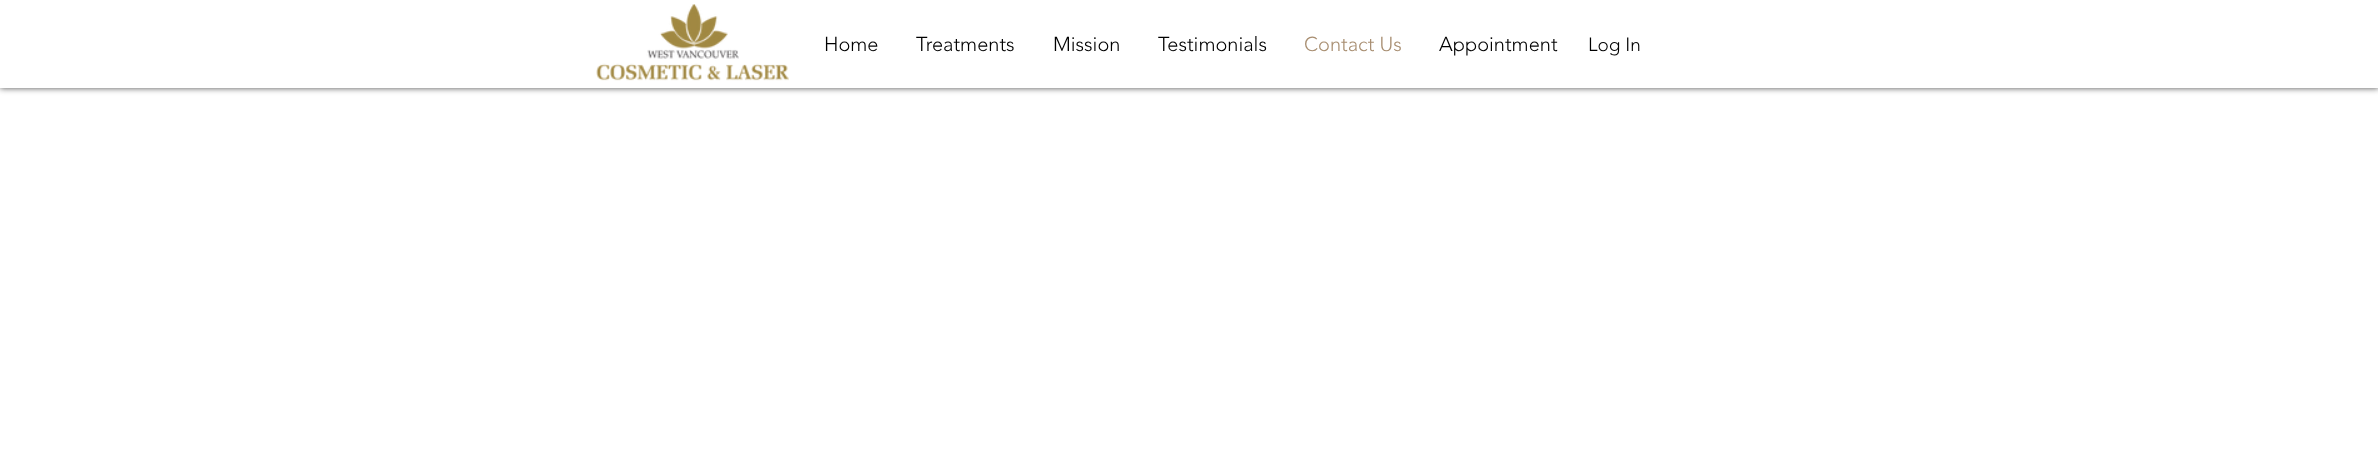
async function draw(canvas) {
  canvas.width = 2378
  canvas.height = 475
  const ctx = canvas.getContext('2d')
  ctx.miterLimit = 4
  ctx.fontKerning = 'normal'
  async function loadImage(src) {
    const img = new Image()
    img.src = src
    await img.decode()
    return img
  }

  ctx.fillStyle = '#fff'
  ctx.fillRect(0, 0, 2378, 475)
  ctx.save()
  ctx.beginPath()
  ctx.moveTo(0, 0)
  ctx.lineTo(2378, 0)
  ctx.lineTo(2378, 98)
  ctx.lineTo(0, 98)
  ctx.closePath()
  ctx.moveTo(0, 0)
  ctx.lineTo(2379, 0)
  ctx.lineTo(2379, 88)
  ctx.lineTo(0, 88)
  ctx.closePath()
  ctx.clip('evenodd')
  ctx.fillStyle = '#000000b3'
  ctx.filter = 'blur(3px)'
  ctx.beginPath()
  ctx.rect(0, 0, 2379, 88)
  ctx.fill()
  ctx.filter = 'none'
  ctx.restore()
  ctx.fillStyle = '#ffffff99'
  ctx.fillRect(0, 87, 2378, 1)
  ctx.drawImage(await loadImage('image0.png'), 596, 4, 193, 77)
  ctx.font = '300 20px "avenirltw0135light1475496"'
  ctx.fillStyle = '#000'
  ctx.fillText('Home', 824, 51)
  ctx.fillText('Treatments', 916, 51)
  ctx.fillText('Mission', 1053, 51)
  ctx.fillText('Testimonials', 1158, 51)
  ctx.fillStyle = '#a88e71'
  ctx.fillText('Contact Us', 1304, 51)
  ctx.fillStyle = '#000'
  ctx.fillText('Appointment', 1439, 51)
  ctx.font = '300 19px "avenirltw0135light1475496"'
  ctx.fillText('Log In', 1588, 51)
}

draw(document.querySelector('canvas'))
